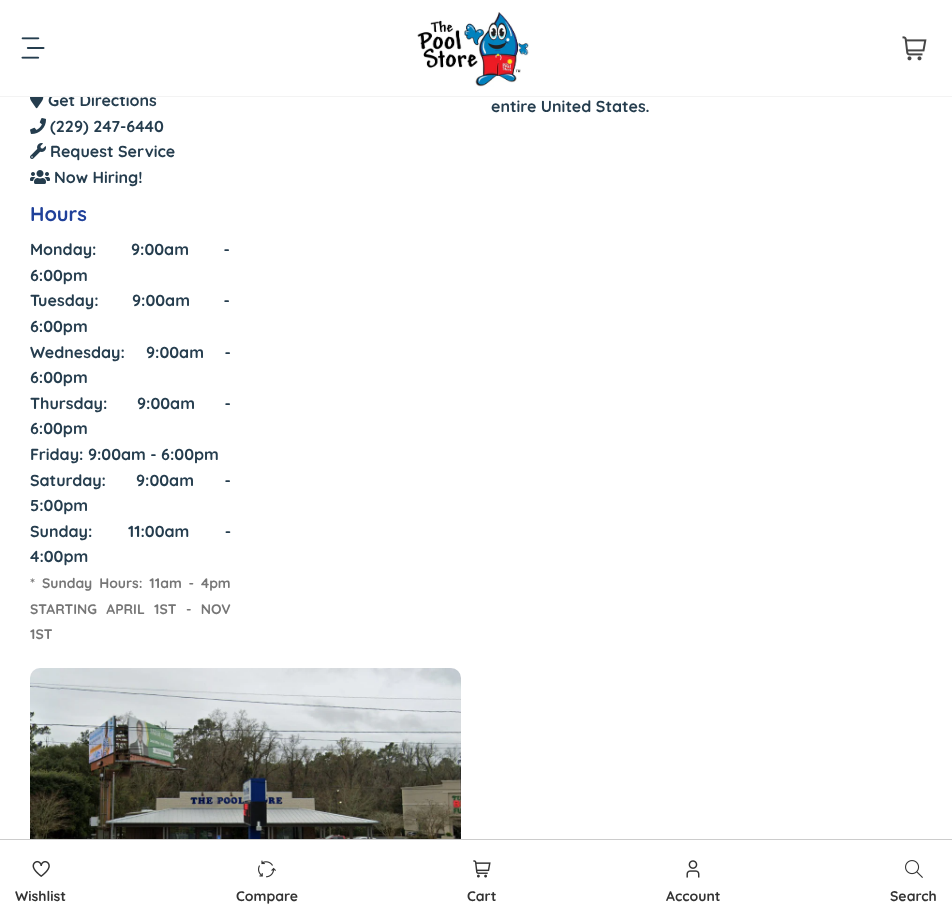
async function draw(canvas) {
  canvas.width = 952
  canvas.height = 918
  const ctx = canvas.getContext('2d')
  ctx.miterLimit = 4
  ctx.fontKerning = 'normal'
  async function loadImage(src) {
    const img = new Image()
    img.src = src
    await img.decode()
    return img
  }

  ctx.fillStyle = '#fff'
  ctx.fillRect(0, 0, 952, 918)
  ctx.font = 'bold 16px Quicksand'
  ctx.fillStyle = '#253d4e'
  ctx.fillText('Get Directions', 48, 106)
  ctx.fillStyle = '#fff'
  ctx.fillRect(50, 94, 79, 2)
  ctx.fillStyle = '#f3f3f3'
  ctx.fillRect(0, 96, 952, 1)
  ctx.drawImage(await loadImage('image0.png'), 21, 37, 24, 22)
  ctx.drawImage(await loadImage('image1.png'), 417, 12, 112, 75)
  ctx.drawImage(await loadImage('image2.png'), 902, 36, 25, 25)
  ctx.drawImage(await loadImage('image3.png'), 30, 97, 14, 12)
  ctx.drawImage(await loadImage('image4.png'), 30, 118, 16, 16)
  ctx.fillStyle = '#253d4e'
  ctx.fillText('(229) 247-6440', 50, 132)
  ctx.drawImage(await loadImage('image5.png'), 30, 143, 16, 16)
  ctx.fillText('Request Service', 50, 157)
  ctx.drawImage(await loadImage('image6.png'), 30, 170, 20, 14)
  ctx.fillText('Now Hiring!', 54, 183)
  ctx.font = 'bold 20px Quicksand'
  ctx.fillStyle = '#20419a'
  ctx.fillText('Hours', 30, 221)
  ctx.font = 'bold 16px Quicksand'
  ctx.fillStyle = '#253d4e'
  ctx.fillText('Monday:', 30, 255)
  ctx.wordSpacing = '30px'
  ctx.fillText('9:00am -', 131, 255)
  ctx.wordSpacing = '0px'
  ctx.fillText('6:00pm', 30, 281)
  ctx.fillText('Tuesday:', 30, 306)
  ctx.wordSpacing = '29px'
  ctx.fillText('9:00am -', 132, 306)
  ctx.wordSpacing = '0px'
  ctx.fillText('6:00pm', 30, 332)
  ctx.fillText('Wednesday:', 30, 358)
  ctx.wordSpacing = '16px'
  ctx.fillText('9:00am -', 146, 358)
  ctx.wordSpacing = '0px'
  ctx.fillText('6:00pm', 30, 383)
  ctx.fillText('Thursday:', 30, 409)
  ctx.wordSpacing = '25px'
  ctx.fillText('9:00am -', 137, 409)
  ctx.wordSpacing = '0px'
  ctx.fillText('6:00pm', 30, 434)
  ctx.fillText('Friday: 9:00am - 6:00pm', 30, 460)
  ctx.fillText('Saturday:', 30, 486)
  ctx.wordSpacing = '26px'
  ctx.fillText('9:00am -', 136, 486)
  ctx.wordSpacing = '0px'
  ctx.fillText('5:00pm', 30, 511)
  ctx.fillText('Sunday:', 30, 537)
  ctx.wordSpacing = '31px'
  ctx.fillText('11:00am -', 128, 537)
  ctx.wordSpacing = '0px'
  ctx.fillText('4:00pm', 30, 562)
  ctx.wordSpacing = '3px'
  ctx.font = 'bold 13.9px Quicksand'
  ctx.fillStyle = '#767676'
  ctx.fillText('* Sunday Hours: 11am - 4pm', 30, 588)
  ctx.wordSpacing = '5.5px'
  ctx.fillText('STARTING APRIL 1ST - NOV', 30, 614)
  ctx.wordSpacing = '0px'
  ctx.fillText('1ST', 30, 639)
  ctx.drawImage(await loadImage('image7.png'), 30, 668, 431, 171)
  ctx.font = 'bold 16px Quicksand'
  ctx.fillStyle = '#253d4e'
  ctx.fillText('entire United States.', 491, 112)
  ctx.fillStyle = '#ccc'
  ctx.fillRect(0, 839, 952, 1)
  ctx.drawImage(await loadImage('image8.png'), 32, 860, 18, 17)
  ctx.font = 'bold 14px Quicksand'
  ctx.fillStyle = '#333'
  ctx.fillText('Wishlist', 15, 901)
  ctx.drawImage(await loadImage('image9.png'), 258, 860, 18, 18)
  ctx.fillText('Compare', 236, 901)
  ctx.drawImage(await loadImage('image10.png'), 473, 860, 18, 18)
  ctx.fillText('Cart', 467, 901)
  ctx.drawImage(await loadImage('image11.png'), 686, 860, 14, 18)
  ctx.fillText('Account', 666, 901)
  ctx.drawImage(await loadImage('image12.png'), 905, 860, 18, 18)
  ctx.fillText('Search', 890, 901)
}

draw(document.querySelector('canvas'))
